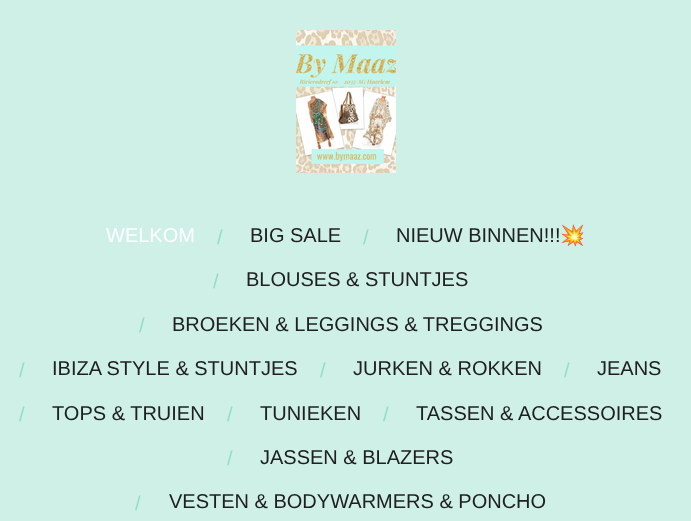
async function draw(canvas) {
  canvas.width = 691
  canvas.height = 521
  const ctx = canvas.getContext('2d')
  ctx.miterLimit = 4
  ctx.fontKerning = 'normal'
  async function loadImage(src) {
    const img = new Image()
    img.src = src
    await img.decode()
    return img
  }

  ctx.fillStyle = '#cef0e6'
  ctx.fillRect(0, 0, 691, 521)
  ctx.drawImage(await loadImage('image0.png'), 296, 30, 100, 143)
  ctx.font = '20px Liberation Sans'
  ctx.fillStyle = '#fff'
  ctx.fillText('WELKOM', 106, 242)
  ctx.fillStyle = '#93dec8'
  ctx.fillText('/', 217, 244)
  ctx.fillStyle = '#202020'
  ctx.fillText('BIG SALE', 250, 242)
  ctx.fillStyle = '#93dec8'
  ctx.fillText('/', 363, 244)
  ctx.fillStyle = '#202020'
  ctx.fillText('NIEUW BINNEN!!!', 396, 242)
  ctx.font = '20px Noto Color Emoji'
  ctx.fillText('💥', 560, 242)
  ctx.font = '20px Liberation Sans'
  ctx.fillStyle = '#93dec8'
  ctx.fillText('/', 213, 288)
  ctx.fillStyle = '#202020'
  ctx.fillText('BLOUSES & STUNTJES', 246, 286)
  ctx.fillStyle = '#93dec8'
  ctx.fillText('/', 139, 332)
  ctx.fillStyle = '#202020'
  ctx.fillText('BROEKEN & LEGGINGS & TREGGINGS', 172, 331)
  ctx.fillStyle = '#93dec8'
  ctx.fillText('/', 19, 377)
  ctx.fillStyle = '#202020'
  ctx.fillText('IBIZA STYLE & STUNTJES', 52, 375)
  ctx.fillStyle = '#93dec8'
  ctx.fillText('/', 320, 377)
  ctx.fillStyle = '#202020'
  ctx.fillText('JURKEN & ROKKEN', 353, 375)
  ctx.fillStyle = '#93dec8'
  ctx.fillText('/', 564, 377)
  ctx.fillStyle = '#202020'
  ctx.fillText('JEANS', 597, 375)
  ctx.fillStyle = '#93dec8'
  ctx.fillText('/', 19, 421)
  ctx.fillStyle = '#202020'
  ctx.fillText('TOPS & TRUIEN', 52, 420)
  ctx.fillStyle = '#93dec8'
  ctx.fillText('/', 227, 421)
  ctx.fillStyle = '#202020'
  ctx.fillText('TUNIEKEN', 260, 420)
  ctx.fillStyle = '#93dec8'
  ctx.fillText('/', 383, 421)
  ctx.fillStyle = '#202020'
  ctx.fillText('TASSEN & ACCESSOIRES', 416, 420)
  ctx.fillStyle = '#93dec8'
  ctx.fillText('/', 227, 465)
  ctx.fillStyle = '#202020'
  ctx.fillText('JASSEN & BLAZERS', 260, 464)
  ctx.fillStyle = '#93dec8'
  ctx.fillText('/', 135, 510)
  ctx.fillStyle = '#202020'
  ctx.fillText('VESTEN & BODYWARMERS & PONCHO', 169, 508)
}

draw(document.querySelector('canvas'))
